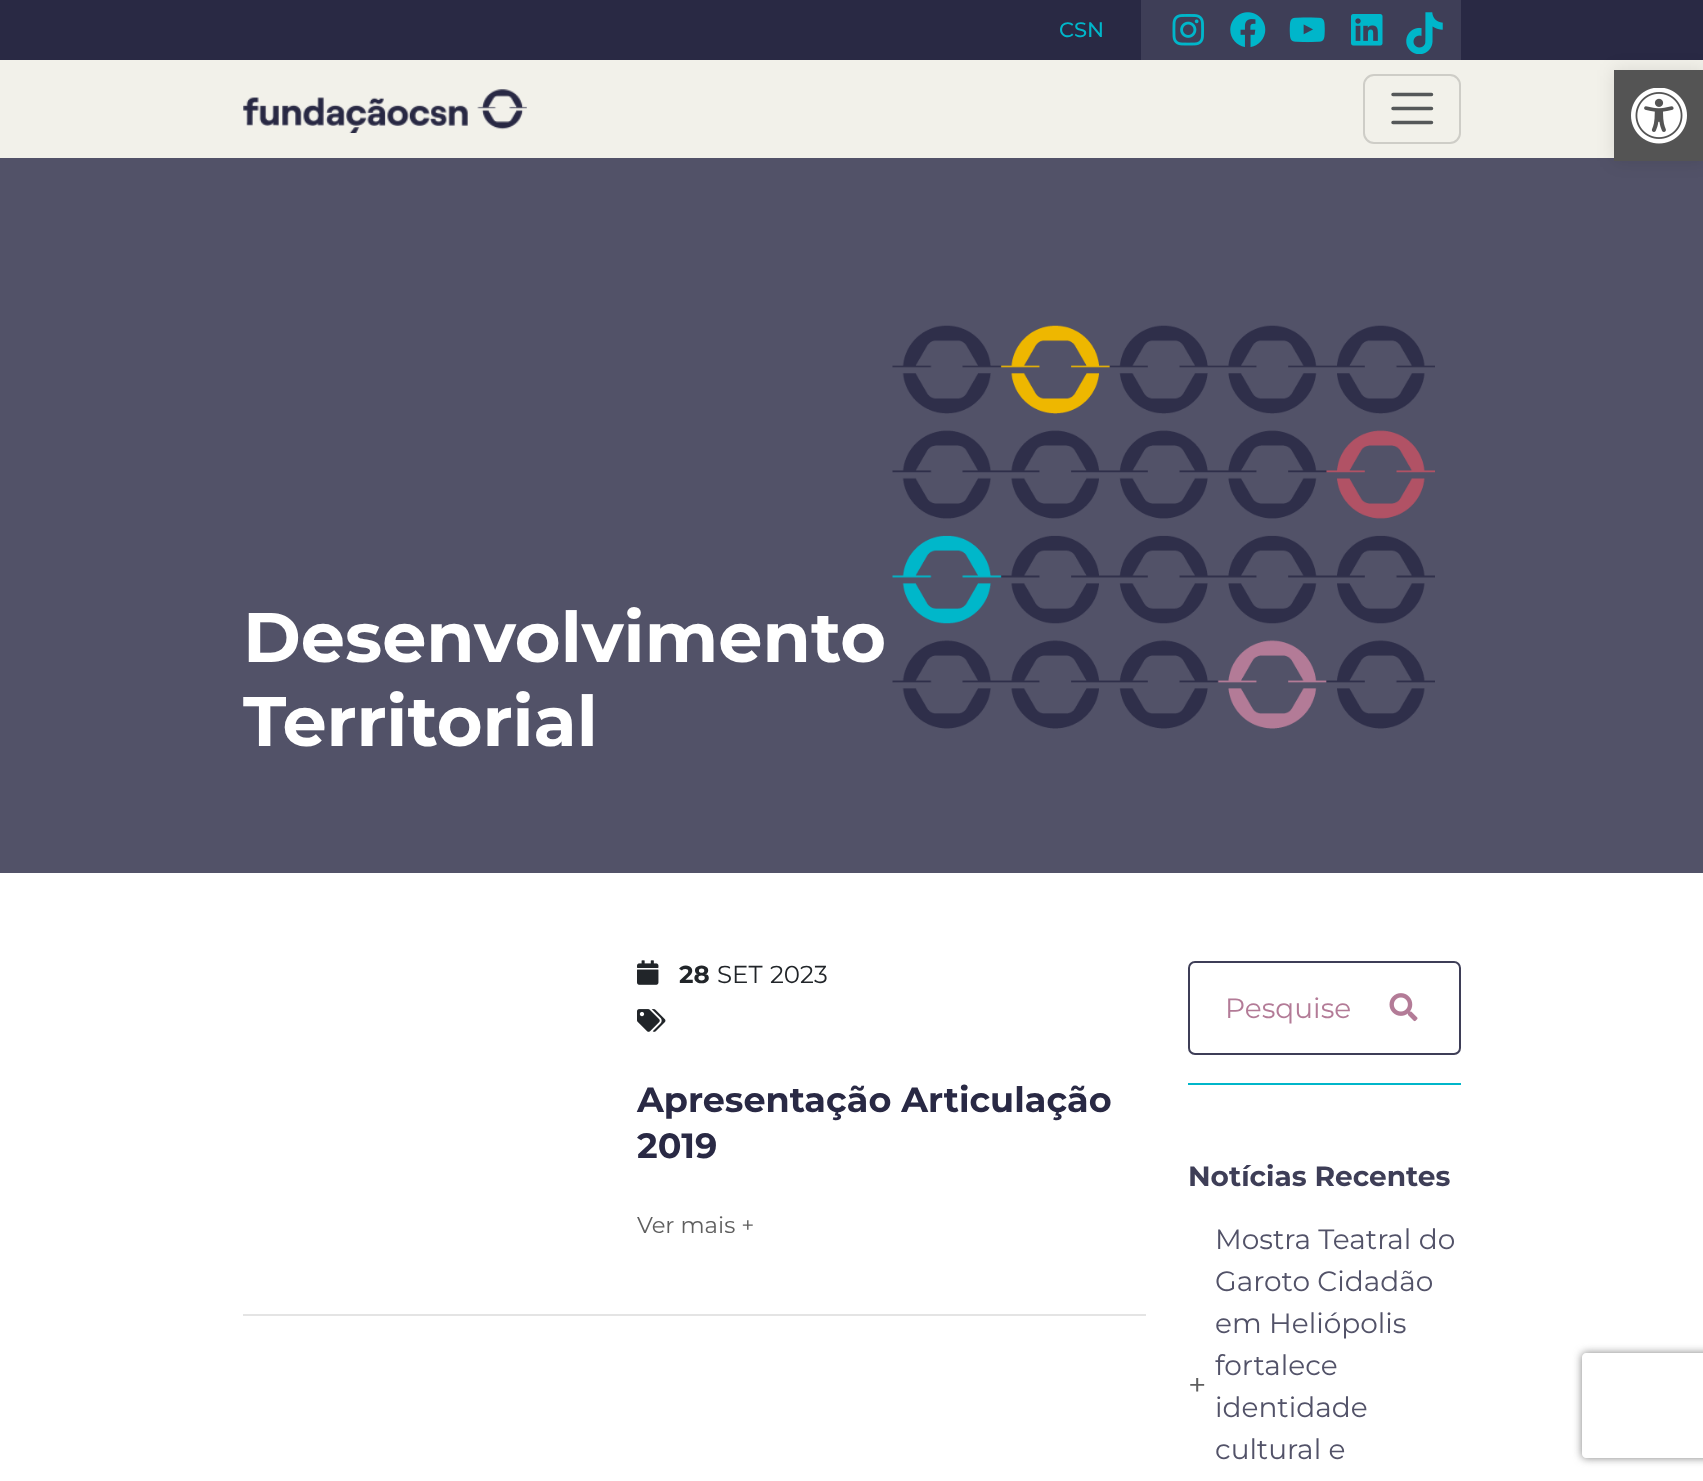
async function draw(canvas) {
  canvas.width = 1703
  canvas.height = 1481
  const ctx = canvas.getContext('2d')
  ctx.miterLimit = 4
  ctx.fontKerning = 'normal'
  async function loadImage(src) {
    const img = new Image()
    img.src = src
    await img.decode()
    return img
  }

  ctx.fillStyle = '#fff'
  ctx.fillRect(0, 0, 1703, 1481)
  ctx.fillStyle = '#f2f1ea'
  ctx.fillRect(0, 60, 1703, 98)
  ctx.fillStyle = '#292944'
  ctx.fillRect(0, 0, 1703, 60)
  ctx.font = '500 21px Montserrat'
  ctx.fillStyle = '#00b6ca'
  ctx.fillText('CSN', 1059, 37)
  ctx.fillStyle = '#3e3e57'
  ctx.fillRect(1141, 0, 320, 60)
  ctx.drawImage(await loadImage('image0.png'), 1172, 14, 32, 32)
  ctx.drawImage(await loadImage('image1.png'), 1230, 12, 36, 35)
  ctx.drawImage(await loadImage('image2.png'), 1289, 17, 36, 26)
  ctx.drawImage(await loadImage('image3.png'), 1351, 14, 32, 32)
  ctx.drawImage(await loadImage('image4.png'), 1406, 12, 37, 42)
  ctx.drawImage(await loadImage('image5.png'), 243, 89, 284, 44)
  ctx.beginPath()
  ctx.roundRect(1364, 75, 96, 68, 10)
  ctx.strokeStyle = '#cecdc7'
  ctx.lineWidth = 2
  ctx.stroke()
  ctx.beginPath()
  ctx.moveTo(1393, 94.5)
  ctx.lineTo(1431.5, 94.5)
  ctx.moveTo(1393, 108.5)
  ctx.lineTo(1431.5, 108.5)
  ctx.moveTo(1393, 122.5)
  ctx.lineTo(1431.5, 122.5)
  ctx.strokeStyle = '#555859'
  ctx.lineWidth = 3.5
  ctx.lineCap = 'round'
  ctx.stroke()
  ctx.fillStyle = '#525268'
  ctx.fillRect(0, 158, 1703, 715)
  ctx.fillStyle = '#0000001a'
  ctx.filter = 'blur(9px)'
  ctx.beginPath()
  ctx.rect(1614, 70, 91, 91)
  ctx.fill()
  ctx.filter = 'none'
  ctx.fillStyle = '#545454'
  ctx.fillRect(1614, 70, 89, 91)
  ctx.drawImage(await loadImage('image6.png'), 1631, 88, 56, 56)
  ctx.font = 'bold 70px Montserrat'
  ctx.fillStyle = '#fff'
  ctx.fillText('Desenvolvimento', 243, 662)
  ctx.fillText('Territorial', 243, 746)
  ctx.drawImage(await loadImage('image7.png'), 892, 325, 543, 404)
  ctx.fillStyle = '#e4e4e4'
  ctx.fillRect(243, 1314, 903, 2)
  ctx.drawImage(await loadImage('image8.png'), 637, 960, 22, 25)
  ctx.font = 'bold 24.5px Montserrat'
  ctx.fillStyle = '#212529'
  ctx.fillText('28', 679, 983)
  ctx.font = '24.5px Montserrat'
  ctx.fillText('SET', 717, 983)
  ctx.fillText('2023', 770, 983)
  ctx.drawImage(await loadImage('image9.png'), 637, 1009, 29, 23)
  ctx.font = 'bold 35px Montserrat'
  ctx.fillStyle = '#292944'
  ctx.fillText('Apresentação Articulação', 637, 1112)
  ctx.fillText('2019', 637, 1158)
  ctx.font = '22.75px Montserrat'
  ctx.fillStyle = '#5f5f5f'
  ctx.fillText('Ver mais +', 637, 1233)
  ctx.fillStyle = '#00b6ca'
  ctx.fillRect(1188, 1083, 273, 2)
  ctx.beginPath()
  ctx.roundRect(1189, 962, 271, 92, 6)
  ctx.strokeStyle = '#3e3e57'
  ctx.lineWidth = 2
  ctx.stroke()
  ctx.font = '28px Montserrat'
  ctx.fillStyle = '#b37b97'
  ctx.fillText('Pesquise', 1225, 1018)
  ctx.drawImage(await loadImage('image10.png'), 1389, 993, 29, 29)
  ctx.font = 'bold 28px Montserrat'
  ctx.fillStyle = '#3e3e57'
  ctx.fillText('Notícias Recentes', 1188, 1186)
  ctx.font = '32px Montserrat'
  ctx.fillStyle = '#5f5f5f'
  ctx.fillText('+', 1188, 1396)
  ctx.font = '28px Montserrat'
  ctx.fillStyle = '#525268'
  ctx.fillText('Mostra Teatral do', 1215, 1249)
  ctx.fillText('Garoto Cidadão', 1215, 1291)
  ctx.fillText('em Heliópolis', 1215, 1333)
  ctx.fillText('fortalece', 1215, 1375)
  ctx.fillText('identidade', 1215, 1417)
  ctx.fillText('cultural e', 1215, 1459)
  ctx.save()
  ctx.beginPath()
  ctx.moveTo(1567, 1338)
  ctx.lineTo(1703, 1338)
  ctx.lineTo(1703, 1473)
  ctx.lineTo(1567, 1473)
  ctx.closePath()
  ctx.moveTo(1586, 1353)
  ctx.lineTo(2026, 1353)
  ctx.bezierCurveTo(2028, 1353, 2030, 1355, 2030, 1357)
  ctx.lineTo(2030, 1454)
  ctx.bezierCurveTo(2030, 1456, 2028, 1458, 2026, 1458)
  ctx.lineTo(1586, 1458)
  ctx.bezierCurveTo(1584, 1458, 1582, 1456, 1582, 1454)
  ctx.lineTo(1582, 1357)
  ctx.bezierCurveTo(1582, 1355, 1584, 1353, 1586, 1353)
  ctx.closePath()
  ctx.clip('evenodd')
  ctx.fillStyle = '#808080'
  ctx.filter = 'blur(4.5px)'
  ctx.beginPath()
  ctx.roundRect(1582, 1353, 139, 105, 4)
  ctx.fill()
  ctx.filter = 'none'
  ctx.restore()
}

draw(document.querySelector('canvas'))
